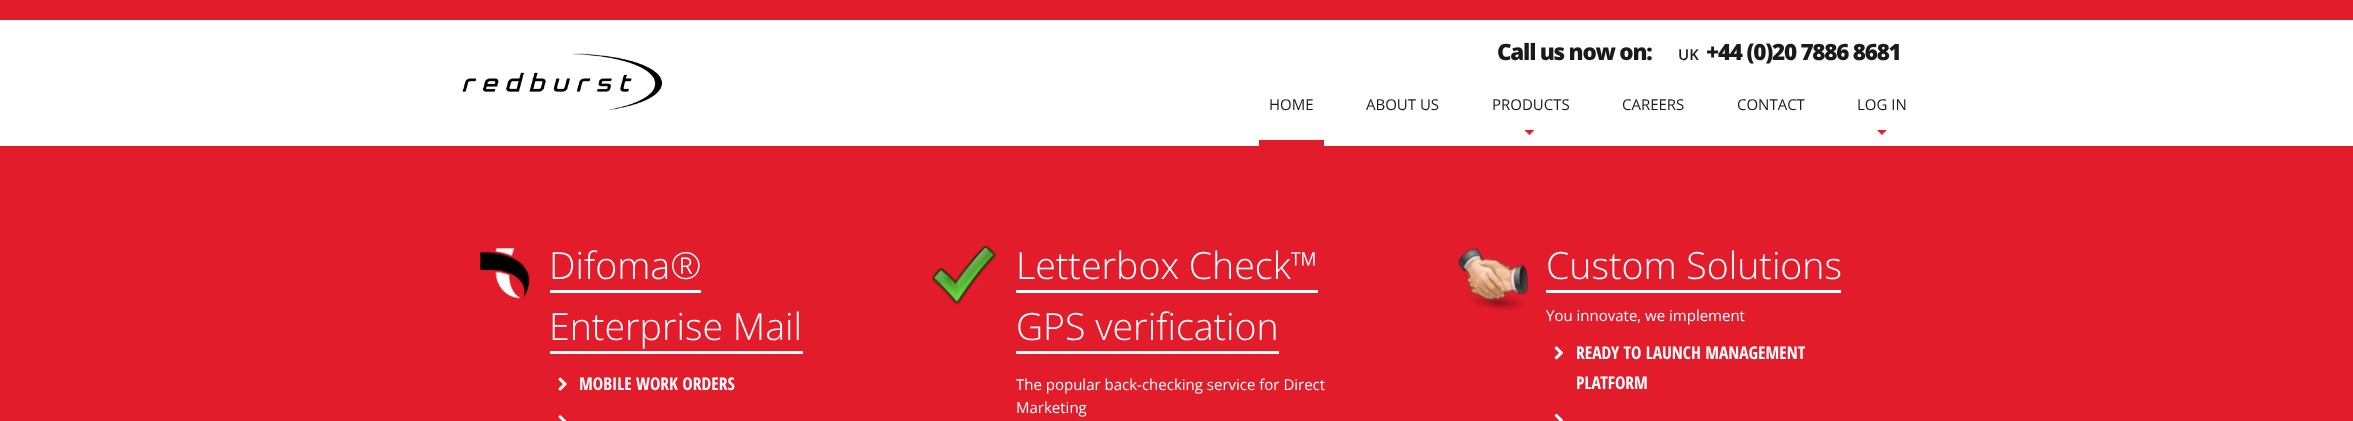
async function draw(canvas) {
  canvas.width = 2353
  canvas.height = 421
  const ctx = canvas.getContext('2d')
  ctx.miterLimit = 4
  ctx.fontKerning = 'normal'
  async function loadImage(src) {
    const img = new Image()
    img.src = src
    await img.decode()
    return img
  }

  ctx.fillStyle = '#fff'
  ctx.fillRect(0, 0, 2353, 421)
  ctx.fillStyle = '#e21c2b'
  ctx.fillRect(0, 0, 2353, 20)
  ctx.drawImage(await loadImage('image0.png'), 462, 53, 200, 57)
  ctx.letterSpacing = '-1.25px'
  ctx.font = '800 22.5px Open Sans'
  ctx.fillStyle = '#1a1a1a'
  ctx.fillText('Call us now on:', 1497, 60)
  ctx.letterSpacing = '0px'
  ctx.font = '600 15px Open Sans'
  ctx.fillText('UK', 1678, 60)
  ctx.letterSpacing = '-1.25px'
  ctx.font = '800 22.5px Open Sans'
  ctx.fillText('+44 (0)20 7886 8681', 1706, 60)
  ctx.letterSpacing = '0px'
  ctx.font = '15px Open Sans'
  ctx.fillText('HOME', 1269, 110)
  ctx.fillStyle = '#e21c2b'
  ctx.fillRect(1259, 140, 65, 6)
  ctx.fillStyle = '#1a1a1a'
  ctx.fillText('ABOUT US', 1366, 110)
  ctx.fillText('PRODUCTS', 1492, 110)
  ctx.drawImage(await loadImage('image1.png'), 1525, 130, 9, 6)
  ctx.fillText('CAREERS', 1622, 110)
  ctx.fillText('CONTACT', 1737, 110)
  ctx.fillText('LOG IN', 1857, 110)
  ctx.drawImage(await loadImage('image2.png'), 1877, 130, 10, 6)
  ctx.fillStyle = '#e21c2b'
  ctx.fillRect(0, 146, 2353, 275)
  ctx.drawImage(await loadImage('image3.png'), 480, 248, 50, 51)
  ctx.fillStyle = '#fff'
  ctx.fillRect(550, 290, 151, 3)
  ctx.font = '300 37.5px Open Sans'
  ctx.fillText('Difoma®', 549, 279)
  ctx.fillRect(550, 351, 253, 3)
  ctx.fillText('Enterprise Mail', 549, 340)
  ctx.drawImage(await loadImage('image4.png'), 558, 377, 9, 14)
  ctx.font = 'bold 17.5px Open Sans Condensed'
  ctx.fillText('MOBILE WORK ORDERS', 579, 390)
  ctx.drawImage(await loadImage('image5.png'), 558, 415, 9, 6)
  ctx.drawImage(await loadImage('image6.png'), 931, 245, 66, 60)
  ctx.fillRect(1016, 290, 302, 3)
  ctx.font = '300 37.5px Open Sans'
  ctx.fillText('Letterbox Check™', 1016, 279)
  ctx.fillRect(1016, 351, 263, 3)
  ctx.fillText('GPS verification', 1016, 340)
  ctx.font = '15px Open Sans'
  ctx.fillText('The popular back-checking service for Direct', 1016, 390)
  ctx.fillText('Marketing', 1016, 413)
  ctx.drawImage(await loadImage('image7.png'), 1458, 248, 70, 63)
  ctx.fillRect(1546, 290, 295, 3)
  ctx.font = '300 37.5px Open Sans'
  ctx.fillText('Custom Solutions', 1546, 279)
  ctx.font = '15px Open Sans'
  ctx.fillText('You innovate, we implement', 1546, 321)
  ctx.drawImage(await loadImage('image8.png'), 1554, 346, 9, 14)
  ctx.font = 'bold 17.5px Open Sans Condensed'
  ctx.fillText('READY TO LAUNCH MANAGEMENT', 1576, 359)
  ctx.fillText('PLATFORM', 1576, 389)
  ctx.drawImage(await loadImage('image9.png'), 1554, 413, 9, 8)
}

draw(document.querySelector('canvas'))
